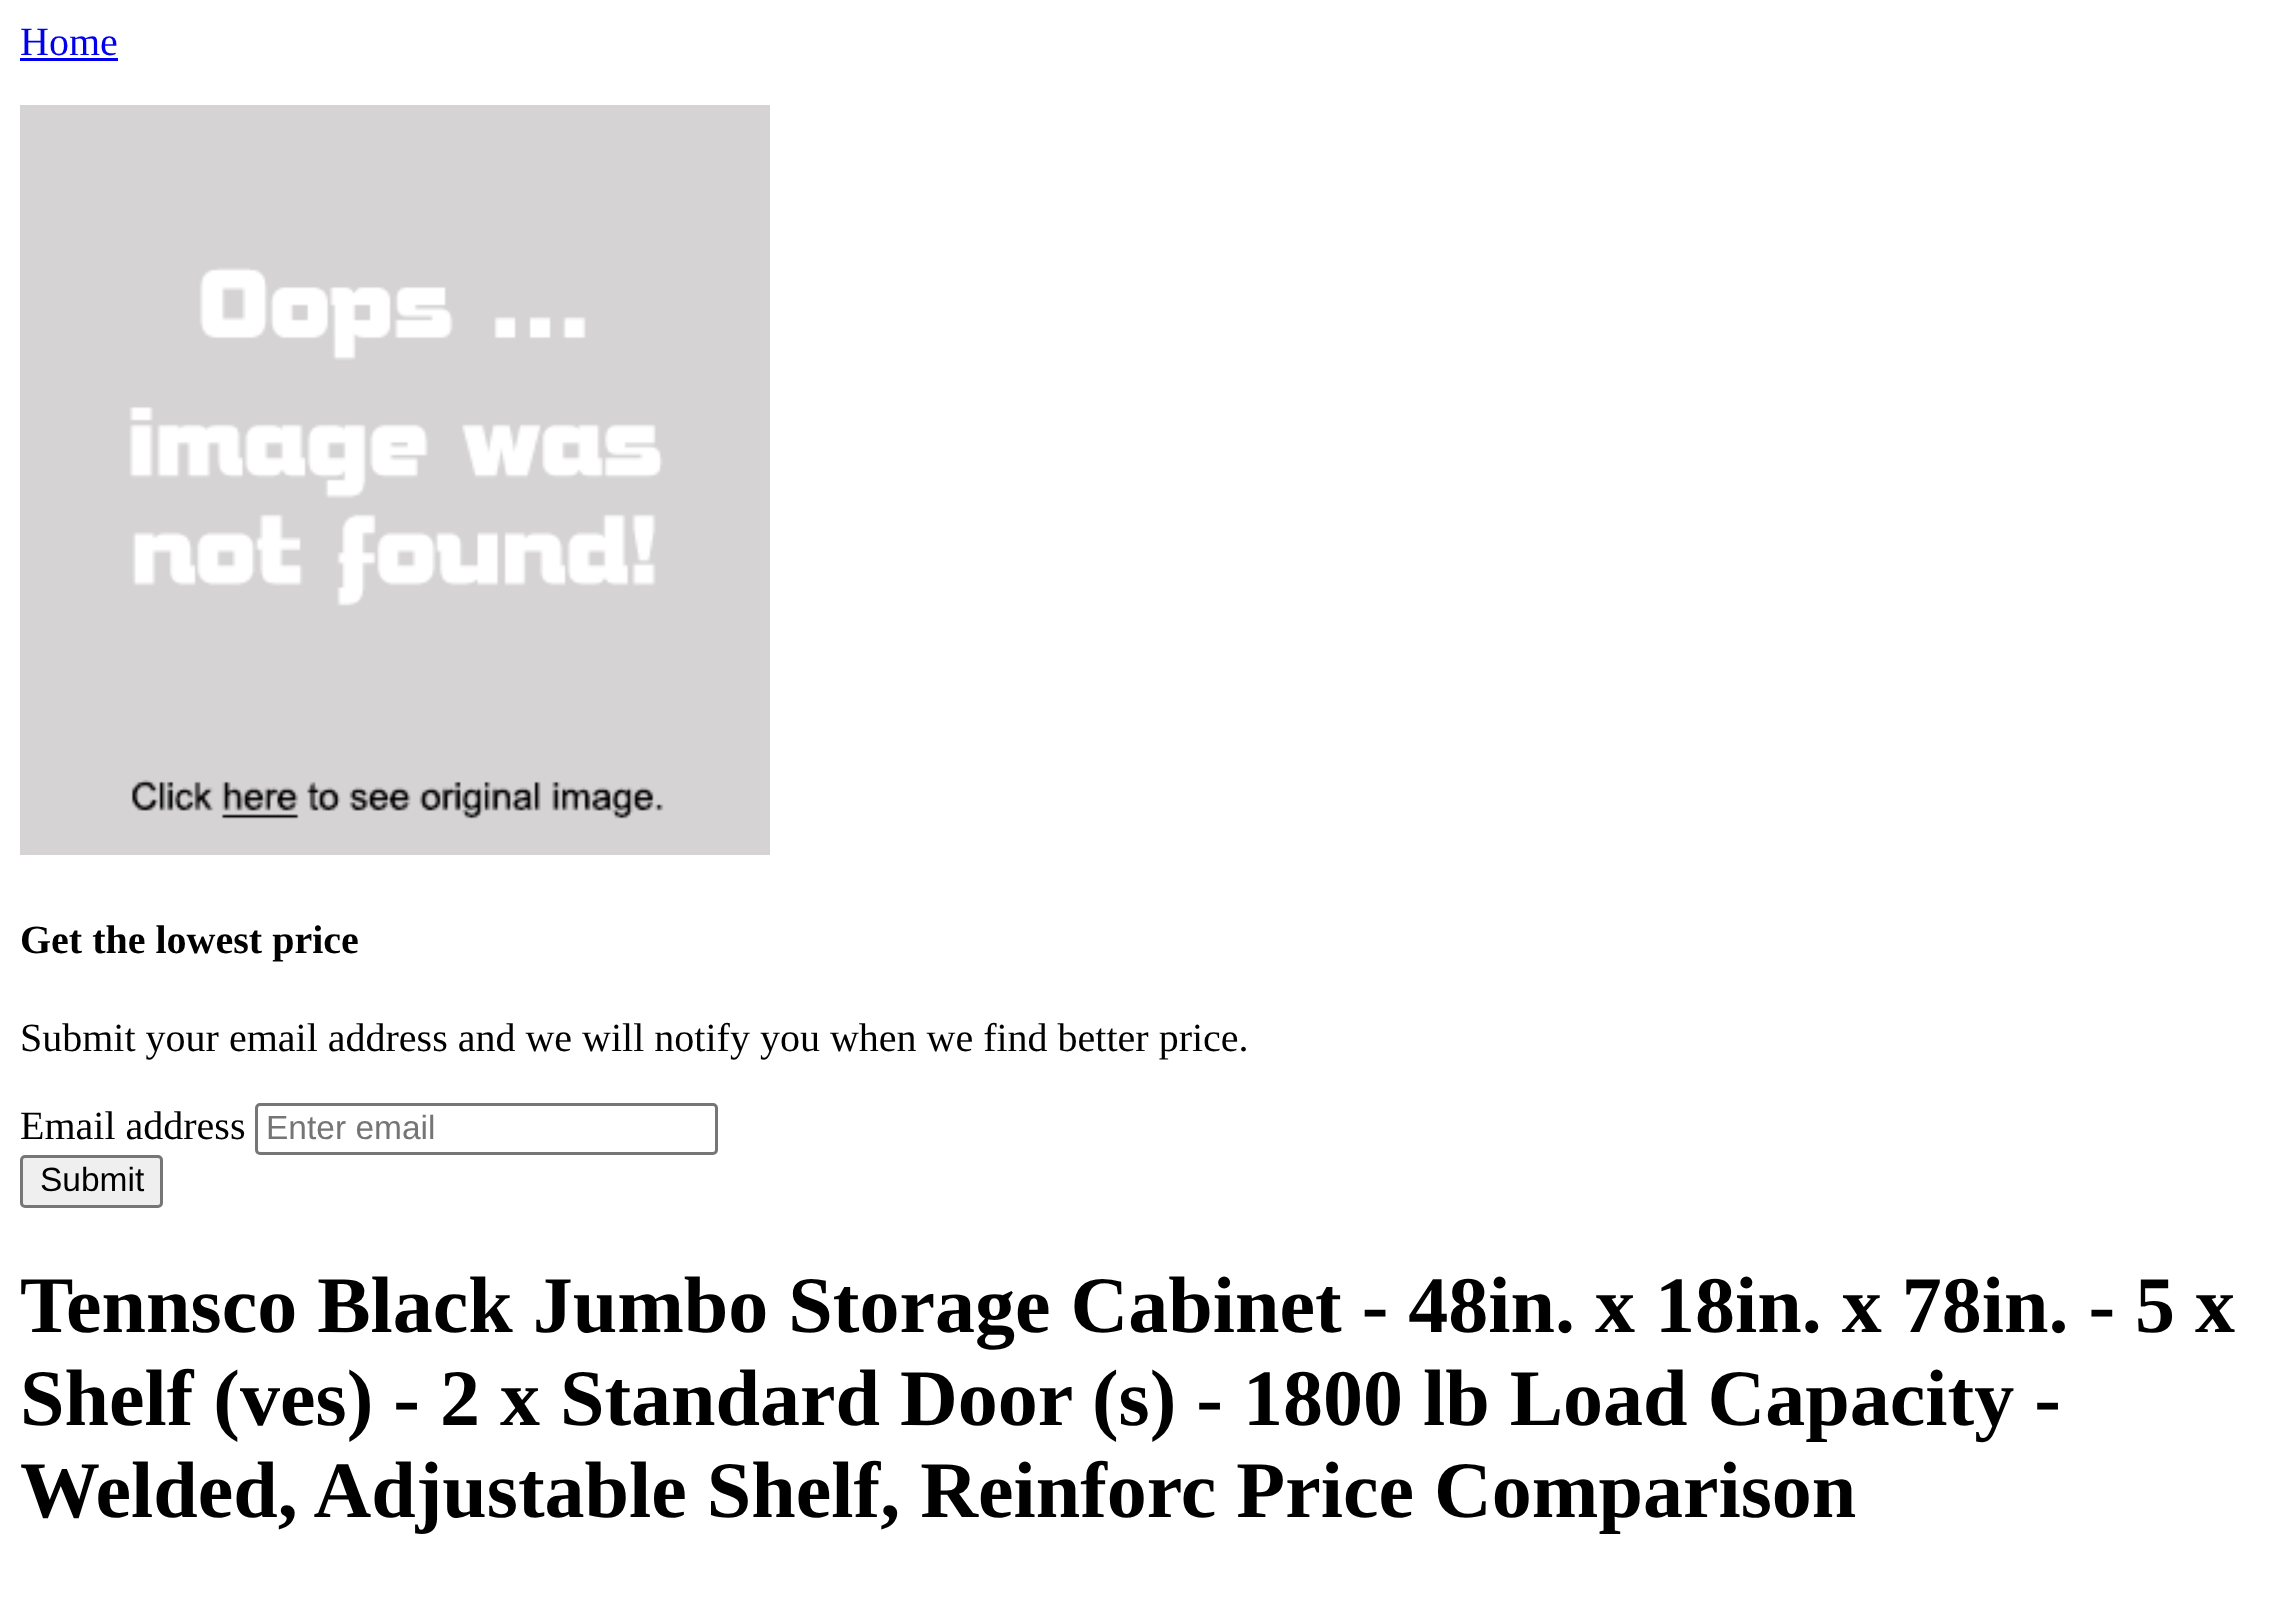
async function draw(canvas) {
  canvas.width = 2278
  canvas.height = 1615
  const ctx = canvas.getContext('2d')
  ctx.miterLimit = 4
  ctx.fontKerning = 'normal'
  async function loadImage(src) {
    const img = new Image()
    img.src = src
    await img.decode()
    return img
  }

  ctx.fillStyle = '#fff'
  ctx.fillRect(0, 0, 2278, 1615)
  ctx.font = '40px Liberation Serif'
  ctx.fillStyle = '#00e'
  ctx.fillText('Home', 20, 55)
  ctx.fillRect(20, 58, 98, 3)
  ctx.drawImage(await loadImage('image0.png'), 20, 105, 750, 750)
  ctx.font = 'bold 40px Liberation Serif'
  ctx.fillStyle = '#000'
  ctx.fillText('Get the lowest price', 20, 953)
  ctx.font = '40px Liberation Serif'
  ctx.fillText('Submit your email address and we will notify you when we find better price.', 20, 1051)
  ctx.fillText('Email address', 20, 1139)
  ctx.beginPath()
  ctx.roundRect(256.5, 1104.5, 460, 49, 3.5)
  ctx.strokeStyle = '#767676'
  ctx.lineWidth = 3
  ctx.stroke()
  ctx.font = '33.5px Liberation Sans'
  ctx.fillStyle = '#757575'
  ctx.fillText('Enter email', 266, 1139)
  ctx.fillStyle = '#efefef'
  ctx.beginPath()
  ctx.roundRect(21.5, 1156.5, 140, 50, 3.5)
  ctx.fill()
  ctx.stroke()
  ctx.fillStyle = '#000'
  ctx.fillText('Submit', 40, 1191)
  ctx.font = 'bold 80px Liberation Serif'
  ctx.fillText('Tennsco Black Jumbo Storage Cabinet - 48in. x 18in. x 78in. - 5 x', 20, 1332)
  ctx.fillText('Shelf (ves) - 2 x Standard Door (s) - 1800 lb Load Capacity -', 20, 1425)
  ctx.fillText('Welded, Adjustable Shelf, Reinforc Price Comparison', 20, 1517)
}

draw(document.querySelector('canvas'))
